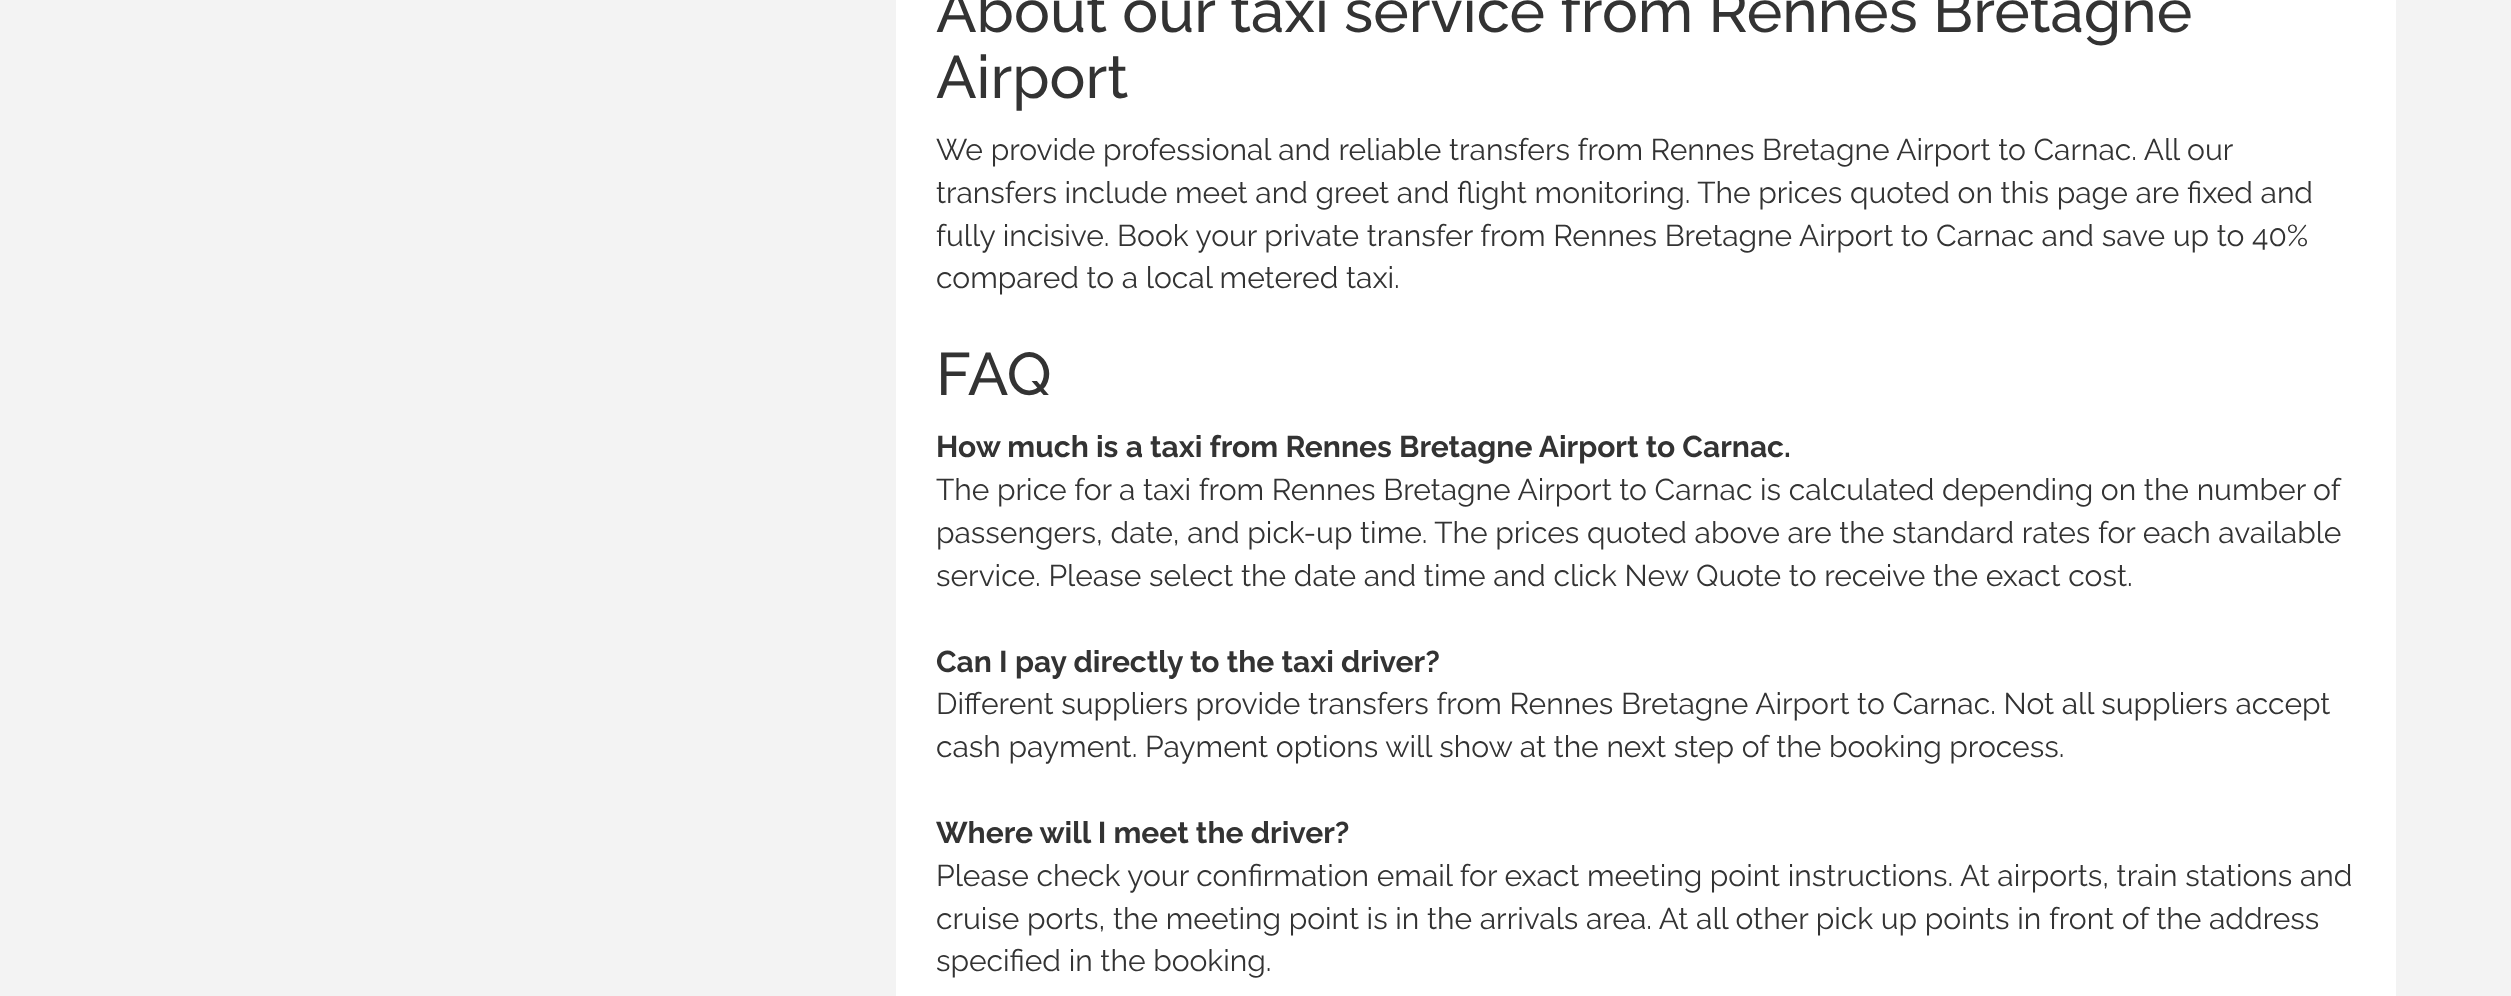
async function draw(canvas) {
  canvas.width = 2511
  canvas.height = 996
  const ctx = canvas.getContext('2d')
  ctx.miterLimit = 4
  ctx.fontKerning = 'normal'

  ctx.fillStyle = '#f3f3f3'
  ctx.fillRect(0, 0, 2511, 996)
  ctx.fillStyle = '#fff'
  ctx.fillRect(896, 0, 1500, 996)
  ctx.font = '500 60px Raleway'
  ctx.fillStyle = '#333'
  ctx.fillText('About our taxi service from Rennes Bretagne', 936, 32)
  ctx.fillText('Airport', 936, 98)
  ctx.font = '30px Raleway'
  ctx.fillText('We provide professional and reliable transfers from Rennes Bretagne Airport to Carnac. All our', 936, 160)
  ctx.fillText('transfers include meet and greet and flight monitoring. The prices quoted on this page are fixed and', 936, 203)
  ctx.fillText('fully incisive. Book your private transfer from Rennes Bretagne Airport to Carnac and save up to 40%', 936, 246)
  ctx.fillText('compared to a local metered taxi.', 936, 288)
  ctx.font = '500 60px Raleway'
  ctx.fillText('FAQ', 936, 395)
  ctx.font = 'bold 30px Raleway'
  ctx.fillText('How much is a taxi from Rennes Bretagne Airport to Carnac.', 936, 457)
  ctx.font = '30px Raleway'
  ctx.fillText('The price for a taxi from Rennes Bretagne Airport to Carnac is calculated depending on the number of', 936, 500)
  ctx.fillText('passengers, date, and pick-up time. The prices quoted above are the standard rates for each available', 936, 543)
  ctx.fillText('service. Please select the date and time and click New Quote to receive the exact cost.', 936, 586)
  ctx.font = 'bold 30px Raleway'
  ctx.fillText('Can I pay directly to the taxi driver?', 936, 672)
  ctx.font = '30px Raleway'
  ctx.fillText('Different suppliers provide transfers from Rennes Bretagne Airport to Carnac. Not all suppliers accept', 936, 714)
  ctx.fillText('cash payment. Payment options will show at the next step of the booking process.', 936, 757)
  ctx.font = 'bold 30px Raleway'
  ctx.fillText('Where will I meet the driver?', 936, 843)
  ctx.font = '30px Raleway'
  ctx.fillText('Please check your confirmation email for exact meeting point instructions. At airports, train stations and', 936, 886)
  ctx.fillText('cruise ports, the meeting point is in the arrivals area. At all other pick up points in front of the address', 936, 929)
  ctx.fillText('specified in the booking.', 936, 971)
}

draw(document.querySelector('canvas'))
